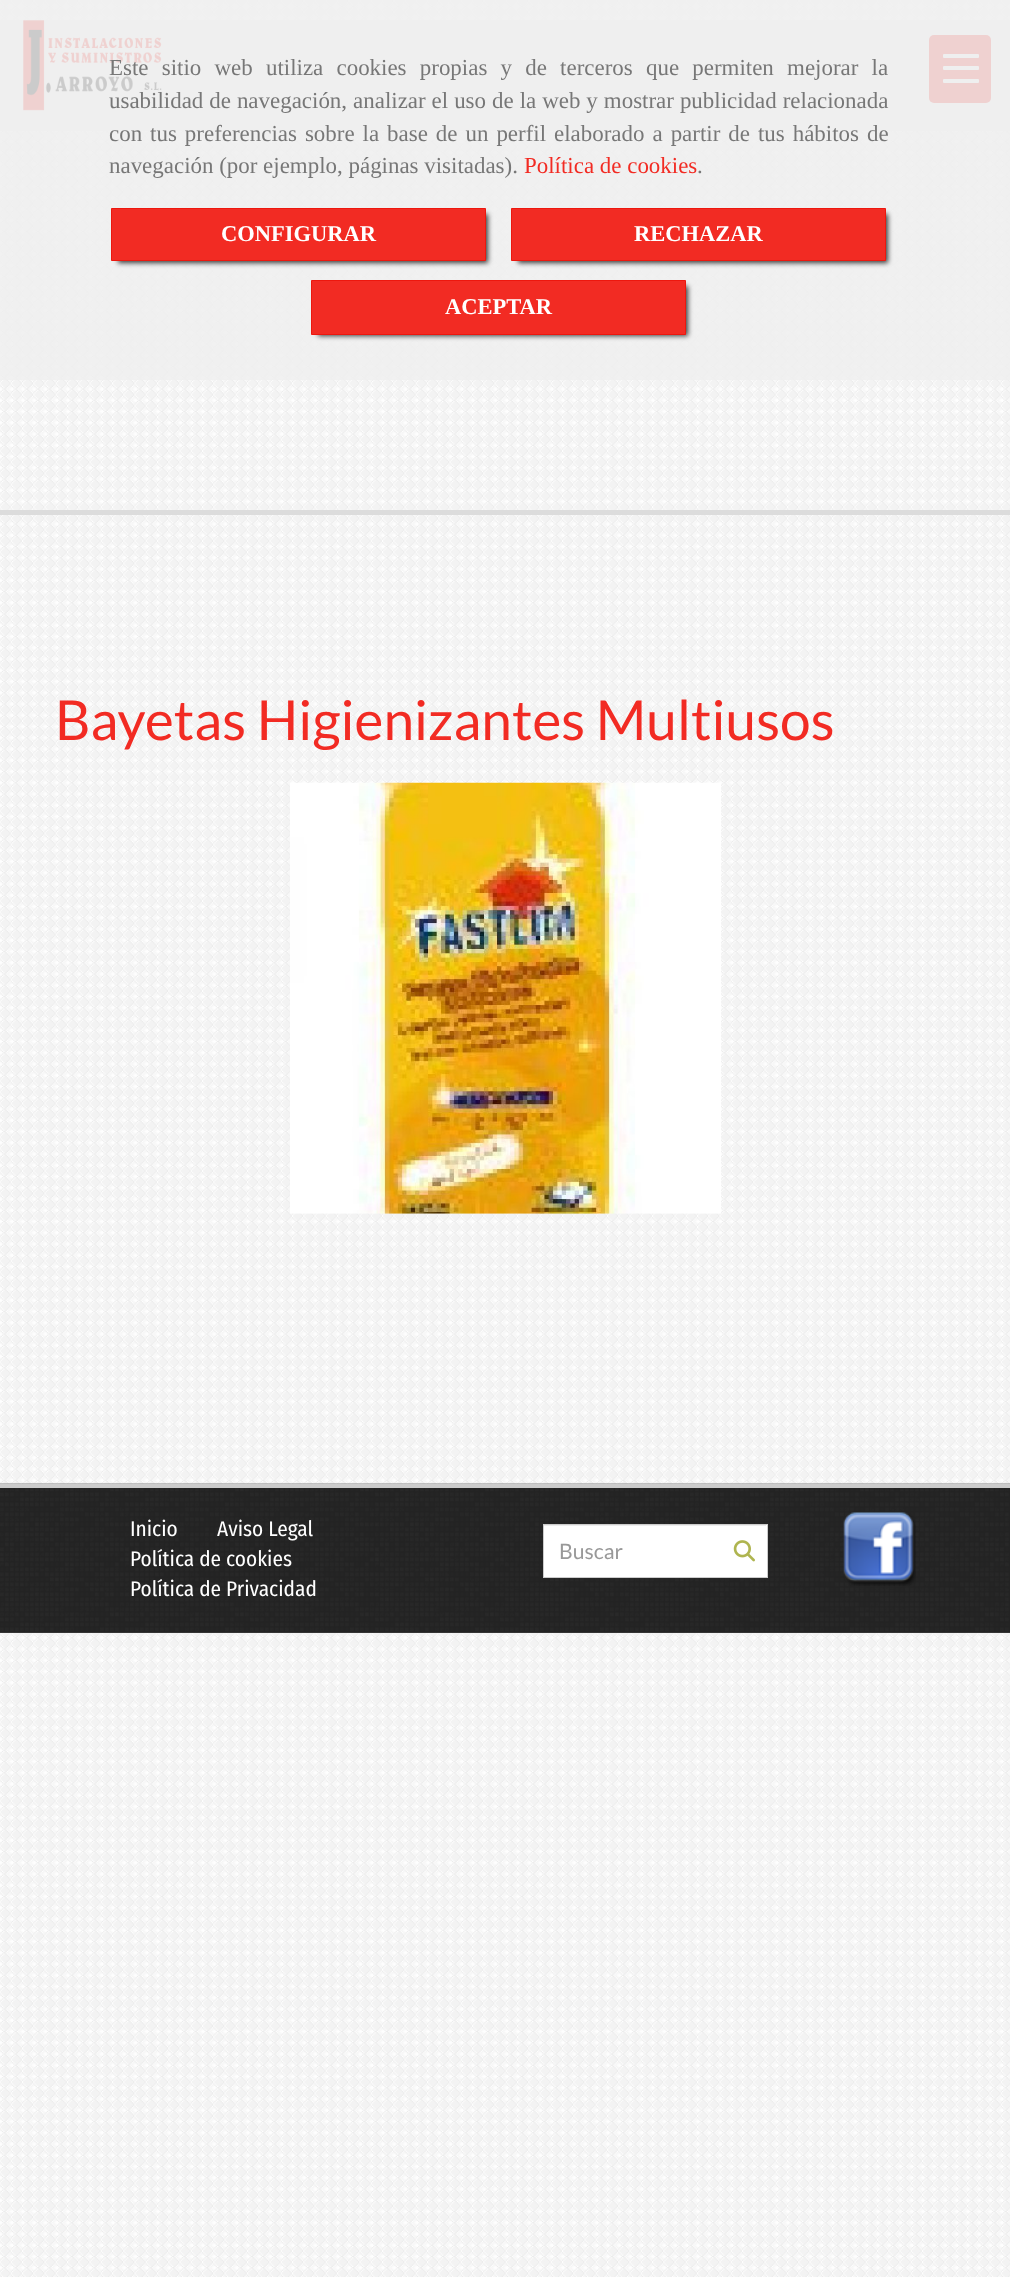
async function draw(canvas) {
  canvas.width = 1010
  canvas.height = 2277
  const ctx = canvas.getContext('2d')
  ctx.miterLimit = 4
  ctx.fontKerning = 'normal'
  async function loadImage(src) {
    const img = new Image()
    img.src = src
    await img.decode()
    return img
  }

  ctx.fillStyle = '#fff'
  ctx.fillRect(0, 0, 1010, 2277)
  ctx.drawImage(await loadImage('image0.png'), 0, 0, 1010, 2277)
  ctx.fillStyle = '#efefefe6'
  ctx.fillRect(0, 0, 1010, 131)
  ctx.drawImage(await loadImage('image1.png'), 23, 20, 139, 91)
  ctx.fillStyle = '#f22b23'
  ctx.beginPath()
  ctx.roundRect(929, 35, 62, 68, 5)
  ctx.fill()
  ctx.fillStyle = '#eee'
  ctx.beginPath()
  ctx.roundRect(943, 66, 36, 4, 1)
  ctx.fill()
  ctx.beginPath()
  ctx.roundRect(943, 54, 36, 4, 1)
  ctx.fill()
  ctx.beginPath()
  ctx.roundRect(943, 79, 36, 4, 1)
  ctx.fill()
  ctx.fillStyle = '#dcdcdc'
  ctx.fillRect(0, 510, 1010, 5)
  ctx.fillStyle = '#eeeeeed9'
  ctx.fillRect(0, 20, 1010, 360)
  ctx.wordSpacing = '7.5px'
  ctx.font = '22.95px Liberation Serif'
  ctx.fillStyle = '#777'
  ctx.fillText('Este sitio web utiliza cookies propias y de terceros que permiten mejorar la', 109, 75)
  ctx.wordSpacing = '0.25px'
  ctx.fillText('usabilidad de navegación, analizar el uso de la web y mostrar publicidad relacionada', 109, 108)
  ctx.wordSpacing = '2.25px'
  ctx.fillText('con tus preferencias sobre la base de un perfil elaborado a partir de tus hábitos de', 109, 141)
  ctx.wordSpacing = '0px'
  ctx.fillText('navegación (por ejemplo, páginas visitadas).', 109, 173)
  ctx.fillStyle = '#f22b23'
  ctx.fillText('Política de cookies', 524, 173)
  ctx.fillStyle = '#777'
  ctx.fillText('.', 697, 173)
  ctx.fillStyle = '#000000bf'
  ctx.filter = 'blur(2.5px)'
  ctx.beginPath()
  ctx.rect(118, 214, 370, 49)
  ctx.fill()
  ctx.filter = 'none'
  ctx.fillStyle = '#f22b23'
  ctx.beginPath()
  ctx.rect(111.5, 208.5, 374, 52)
  ctx.fill()
  ctx.strokeStyle = '#ed170e'
  ctx.stroke()
  ctx.font = 'bold 22.5px Liberation Serif'
  ctx.fillStyle = '#fff'
  ctx.fillText('CONFIGURAR', 221, 241)
  ctx.fillStyle = '#000000bf'
  ctx.filter = 'blur(2.5px)'
  ctx.beginPath()
  ctx.rect(518, 214, 370, 49)
  ctx.fill()
  ctx.filter = 'none'
  ctx.fillStyle = '#f22b23'
  ctx.beginPath()
  ctx.rect(511.5, 208.5, 374, 52)
  ctx.fill()
  ctx.stroke()
  ctx.fillStyle = '#fff'
  ctx.fillText('RECHAZAR', 634, 241)
  ctx.fillStyle = '#000000bf'
  ctx.filter = 'blur(2.5px)'
  ctx.beginPath()
  ctx.rect(318, 286, 370, 50)
  ctx.fill()
  ctx.filter = 'none'
  ctx.fillStyle = '#f22b23'
  ctx.beginPath()
  ctx.rect(311.5, 280.5, 374, 54)
  ctx.fill()
  ctx.stroke()
  ctx.fillStyle = '#fff'
  ctx.fillText('ACEPTAR', 445, 314)
  ctx.font = '55px Lato'
  ctx.fillStyle = '#f22b23'
  ctx.fillText('Bayetas Higienizantes Multiusos', 55, 740)
  ctx.drawImage(await loadImage('image2.png'), 290, 782, 431, 432)
  ctx.fillStyle = '#484848'
  ctx.fillRect(0, 1632, 1010, 1)
  ctx.drawImage(await loadImage('image3.png'), 0, 1483, 1010, 150)
  ctx.fillStyle = '#ccc'
  ctx.fillRect(0, 1484, 1010, 4)
  ctx.font = '21.25px Fira Sans Condensed'
  ctx.fillStyle = '#fff'
  ctx.fillText('Inicio', 130, 1536)
  ctx.fillText('Aviso Legal', 217, 1536)
  ctx.fillText('Política de cookies', 130, 1566)
  ctx.fillText('Política de Privacidad', 130, 1596)
  ctx.fillRect(544, 1525, 223, 52)
  ctx.fillStyle = '#ececec'
  ctx.fillRect(544, 1525, 222, 1)
  ctx.strokeStyle = '#ccc'
  ctx.strokeRect(543.5, 1524.5, 224, 53)
  ctx.font = '21.25px Lato'
  ctx.fillStyle = '#999'
  ctx.fillText('Buscar', 559, 1559)
  ctx.drawImage(await loadImage('image4.png'), 733, 1540, 22, 22)
  ctx.drawImage(await loadImage('image5.png'), 843, 1512, 73, 74)
}

draw(document.querySelector('canvas'))
